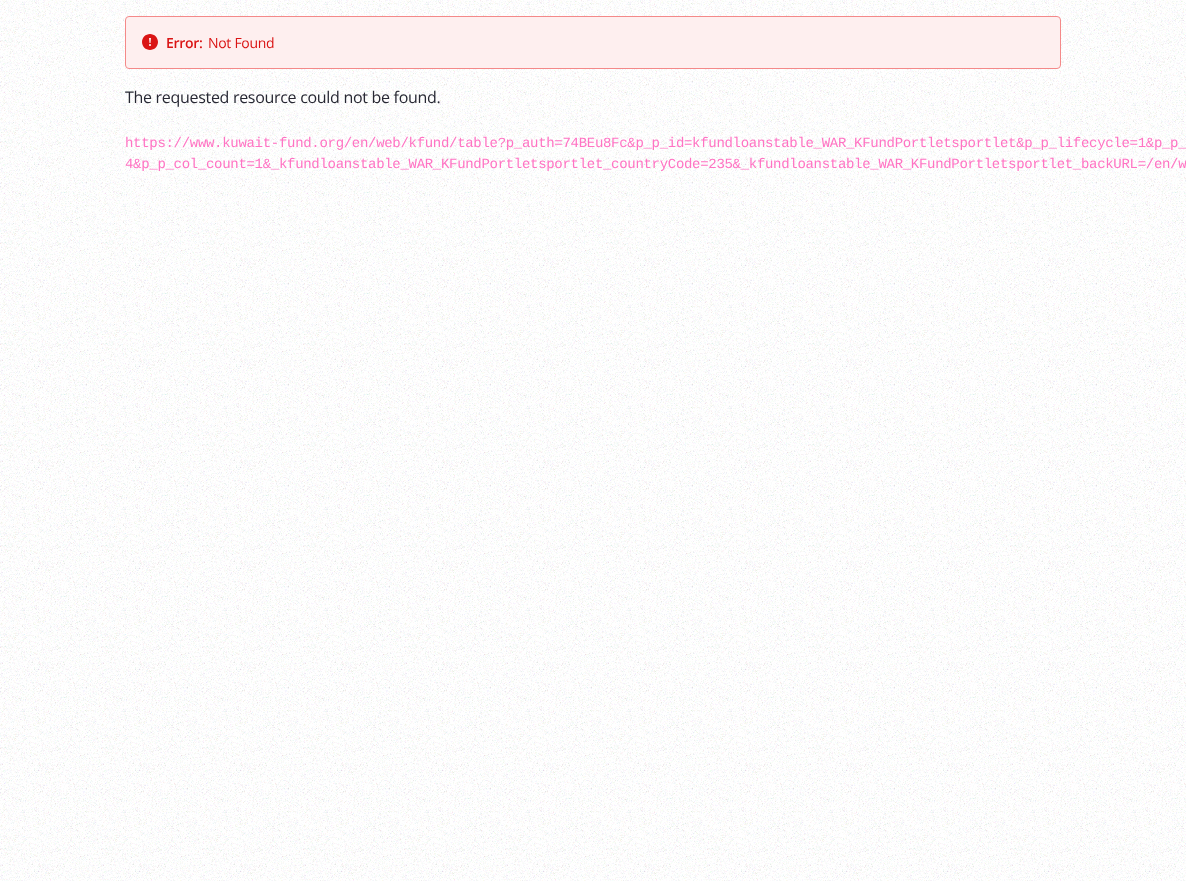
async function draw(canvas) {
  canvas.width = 1186
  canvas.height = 881
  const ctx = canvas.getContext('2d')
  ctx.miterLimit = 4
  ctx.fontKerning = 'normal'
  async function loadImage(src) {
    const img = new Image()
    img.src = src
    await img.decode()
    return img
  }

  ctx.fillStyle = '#fff'
  ctx.fillRect(0, 0, 1186, 881)
  ctx.drawImage(await loadImage('image0.png'), 0, 0, 1186, 881)
  ctx.fillStyle = '#feefef'
  ctx.beginPath()
  ctx.roundRect(125.5, 16.5, 935, 52, 3.5)
  ctx.fill()
  ctx.strokeStyle = '#f48989'
  ctx.stroke()
  ctx.drawImage(await loadImage('image1.png'), 142, 34, 16, 16)
  ctx.letterSpacing = '-0.3px'
  ctx.font = '600 14px Open Sans'
  ctx.fillStyle = '#da1414'
  ctx.fillText('Error:', 166, 48)
  ctx.font = '14px Open Sans'
  ctx.fillText('Not Found', 208, 48)
  ctx.font = '16px Open Sans'
  ctx.fillStyle = '#272833'
  ctx.fillText('The requested resource could not be found.', 125, 103)
  ctx.font = '14px Liberation Mono'
  ctx.fillStyle = '#ff73c3'
  ctx.fillText('https://www.kuwait-fund.org/en/web/kfund/table?p_auth=74BEu8Fc&p_p_id=kfundloanstable_WAR_KFundPortletsportlet&p_p_lifecycle=1&p_p_', 125, 147)
  ctx.fillText('4&p_p_col_count=1&_kfundloanstable_WAR_KFundPortletsportlet_countryCode=235&_kfundloanstable_WAR_KFundPortletsportlet_backURL=/en/w', 125, 168)
}

draw(document.querySelector('canvas'))
